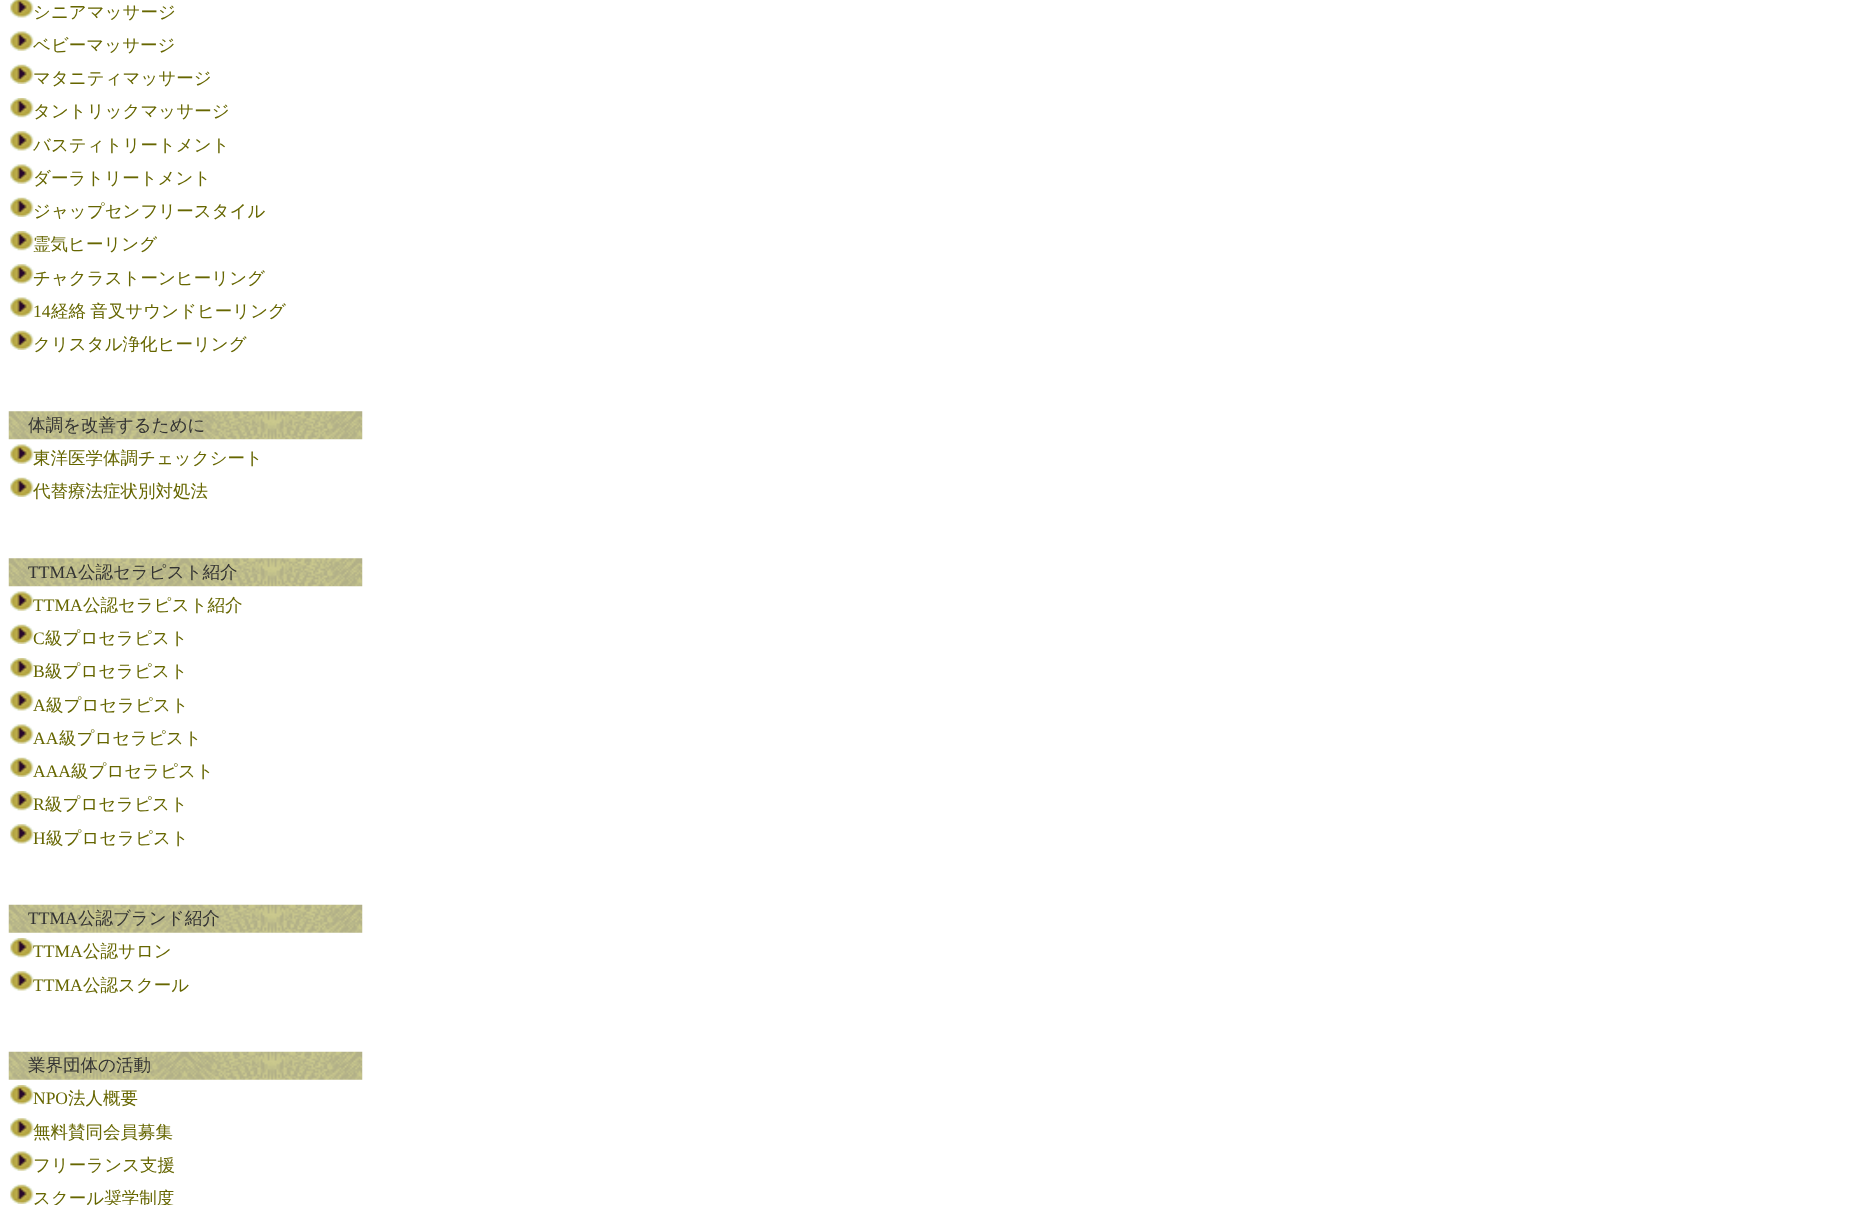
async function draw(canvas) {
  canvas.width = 1851
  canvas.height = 1205
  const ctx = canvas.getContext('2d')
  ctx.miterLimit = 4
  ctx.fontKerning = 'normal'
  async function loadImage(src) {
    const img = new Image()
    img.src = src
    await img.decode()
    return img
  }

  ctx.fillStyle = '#fff'
  ctx.fillRect(0, 0, 1851, 1205)
  ctx.drawImage(await loadImage('image0.png'), 10, 0, 24, 18)
  ctx.font = '500 17.5px WenQuanYi Zen Hei'
  ctx.fillStyle = '#660'
  ctx.fillText('シニアマッサージ', 33, 18)
  ctx.drawImage(await loadImage('image1.png'), 10, 31, 24, 20)
  ctx.fillText('ベビーマッサージ', 33, 51)
  ctx.drawImage(await loadImage('image2.png'), 10, 64, 24, 20)
  ctx.fillText('マタニティマッサージ', 33, 84)
  ctx.drawImage(await loadImage('image3.png'), 10, 98, 24, 20)
  ctx.fillText('タントリックマッサージ', 33, 117)
  ctx.drawImage(await loadImage('image4.png'), 10, 131, 24, 20)
  ctx.fillText('バスティトリートメント', 33, 151)
  ctx.drawImage(await loadImage('image1.png'), 10, 164, 24, 20)
  ctx.fillText('ダーラトリートメント', 33, 184)
  ctx.drawImage(await loadImage('image2.png'), 10, 197, 24, 20)
  ctx.fillText('ジャップセンフリースタイル', 33, 217)
  ctx.drawImage(await loadImage('image3.png'), 10, 231, 24, 20)
  ctx.fillText('霊気ヒーリング', 33, 250)
  ctx.drawImage(await loadImage('image4.png'), 10, 264, 24, 20)
  ctx.fillText('チャクラストーンヒーリング', 33, 284)
  ctx.drawImage(await loadImage('image1.png'), 10, 297, 24, 20)
  ctx.font = '17.5px Liberation Serif'
  ctx.fillText('14', 33, 317)
  ctx.wordSpacing = '-1px'
  ctx.font = '500 17.5px WenQuanYi Zen Hei'
  ctx.fillText('経絡 音叉サウンドヒーリング', 51, 317)
  ctx.drawImage(await loadImage('image2.png'), 10, 330, 24, 20)
  ctx.wordSpacing = '0px'
  ctx.fillText('クリスタル浄化ヒーリング', 33, 350)
  ctx.drawImage(await loadImage('image5.png'), 8, 411, 355, 29)
  ctx.fillStyle = '#333'
  ctx.fillText('体調を改善するために', 28, 431)
  ctx.drawImage(await loadImage('image1.png'), 10, 444, 24, 20)
  ctx.fillStyle = '#660'
  ctx.fillText('東洋医学体調チェックシート', 33, 464)
  ctx.drawImage(await loadImage('image2.png'), 10, 477, 24, 20)
  ctx.fillText('代替療法症状別対処法', 33, 497)
  ctx.drawImage(await loadImage('image6.png'), 8, 558, 355, 29)
  ctx.font = '17.5px Liberation Serif'
  ctx.fillStyle = '#333'
  ctx.fillText('TTMA', 28, 578)
  ctx.font = '500 17.5px WenQuanYi Zen Hei'
  ctx.fillText('公認セラピスト紹介', 78, 578)
  ctx.drawImage(await loadImage('image7.png'), 10, 591, 24, 20)
  ctx.font = '17.5px Liberation Serif'
  ctx.fillStyle = '#660'
  ctx.fillText('TTMA', 33, 611)
  ctx.font = '500 17.5px WenQuanYi Zen Hei'
  ctx.fillText('公認セラピスト紹介', 83, 611)
  ctx.drawImage(await loadImage('image2.png'), 10, 624, 24, 20)
  ctx.font = '17.5px Liberation Serif'
  ctx.fillText('C', 33, 644)
  ctx.font = '500 17.5px WenQuanYi Zen Hei'
  ctx.fillText('級プロセラピスト', 45, 644)
  ctx.drawImage(await loadImage('image3.png'), 10, 658, 24, 20)
  ctx.font = '17.5px Liberation Serif'
  ctx.fillText('B', 33, 677)
  ctx.font = '500 17.5px WenQuanYi Zen Hei'
  ctx.fillText('級プロセラピスト', 45, 677)
  ctx.drawImage(await loadImage('image4.png'), 10, 691, 24, 20)
  ctx.font = '17.5px Liberation Serif'
  ctx.fillText('A', 33, 711)
  ctx.font = '500 17.5px WenQuanYi Zen Hei'
  ctx.fillText('級プロセラピスト', 46, 711)
  ctx.drawImage(await loadImage('image1.png'), 10, 724, 24, 20)
  ctx.font = '17.5px Liberation Serif'
  ctx.fillText('AA', 33, 744)
  ctx.font = '500 17.5px WenQuanYi Zen Hei'
  ctx.fillText('級プロセラピスト', 59, 744)
  ctx.drawImage(await loadImage('image2.png'), 10, 757, 24, 20)
  ctx.font = '17.5px Liberation Serif'
  ctx.fillText('AAA', 33, 777)
  ctx.font = '500 17.5px WenQuanYi Zen Hei'
  ctx.fillText('級プロセラピスト', 71, 777)
  ctx.drawImage(await loadImage('image3.png'), 10, 791, 24, 20)
  ctx.font = '17.5px Liberation Serif'
  ctx.fillText('R', 33, 810)
  ctx.font = '500 17.5px WenQuanYi Zen Hei'
  ctx.fillText('級プロセラピスト', 45, 810)
  ctx.drawImage(await loadImage('image4.png'), 10, 824, 24, 20)
  ctx.font = '17.5px Liberation Serif'
  ctx.fillText('H', 33, 844)
  ctx.font = '500 17.5px WenQuanYi Zen Hei'
  ctx.fillText('級プロセラピスト', 46, 844)
  ctx.drawImage(await loadImage('image8.png'), 8, 904, 355, 29)
  ctx.font = '17.5px Liberation Serif'
  ctx.fillStyle = '#333'
  ctx.fillText('TTMA', 28, 924)
  ctx.font = '500 17.5px WenQuanYi Zen Hei'
  ctx.fillText('公認ブランド紹介', 78, 924)
  ctx.drawImage(await loadImage('image3.png'), 10, 938, 24, 20)
  ctx.font = '17.5px Liberation Serif'
  ctx.fillStyle = '#660'
  ctx.fillText('TTMA', 33, 957)
  ctx.font = '500 17.5px WenQuanYi Zen Hei'
  ctx.fillText('公認サロン', 83, 957)
  ctx.drawImage(await loadImage('image4.png'), 10, 971, 24, 20)
  ctx.font = '17.5px Liberation Serif'
  ctx.fillText('TTMA', 33, 991)
  ctx.font = '500 17.5px WenQuanYi Zen Hei'
  ctx.fillText('公認スクール', 83, 991)
  ctx.drawImage(await loadImage('image9.png'), 8, 1051, 355, 29)
  ctx.fillStyle = '#333'
  ctx.fillText('業界団体の活動', 28, 1071)
  ctx.drawImage(await loadImage('image3.png'), 10, 1085, 24, 20)
  ctx.font = '17.5px Liberation Serif'
  ctx.fillStyle = '#660'
  ctx.fillText('NPO', 33, 1104)
  ctx.font = '500 17.5px WenQuanYi Zen Hei'
  ctx.fillText('法人概要', 68, 1104)
  ctx.drawImage(await loadImage('image4.png'), 10, 1118, 24, 20)
  ctx.fillText('無料賛同会員募集', 33, 1138)
  ctx.drawImage(await loadImage('image1.png'), 10, 1151, 24, 20)
  ctx.fillText('フリーランス支援', 33, 1171)
  ctx.drawImage(await loadImage('image2.png'), 10, 1184, 24, 20)
  ctx.fillText('スクール奨学制度', 33, 1204)
}

draw(document.querySelector('canvas'))
